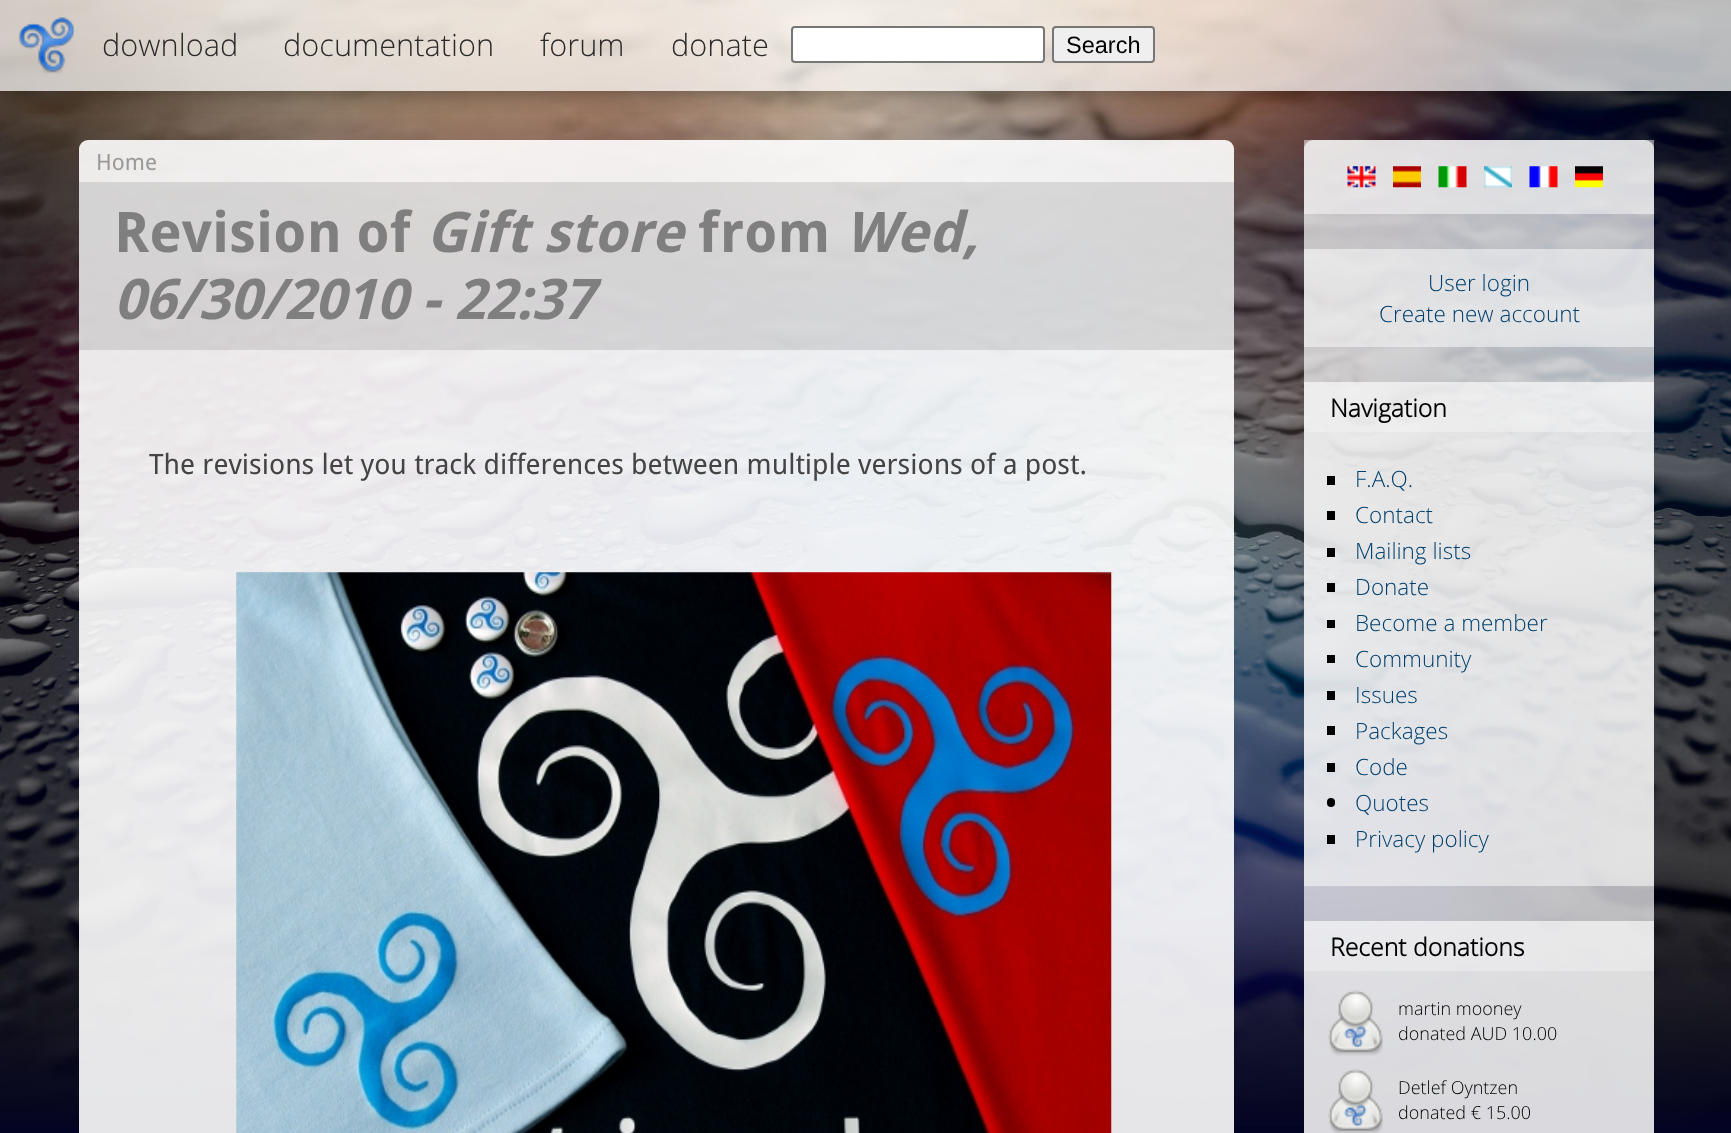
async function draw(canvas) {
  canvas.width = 1731
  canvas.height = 1133
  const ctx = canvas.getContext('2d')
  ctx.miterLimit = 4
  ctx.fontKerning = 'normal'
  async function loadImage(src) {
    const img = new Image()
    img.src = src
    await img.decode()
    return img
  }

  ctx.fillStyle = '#030324'
  ctx.fillRect(0, 0, 1731, 1133)
  ctx.drawImage(await loadImage('image0.png'), 0, 0, 1731, 1126)
  ctx.save()
  ctx.beginPath()
  ctx.rect(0, 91, 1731, 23)
  ctx.clip()
  ctx.fillStyle = '#00000080'
  ctx.filter = 'blur(13px)'
  ctx.beginPath()
  ctx.rect(0, 0, 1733, 91)
  ctx.fill()
  ctx.filter = 'none'
  ctx.restore()
  ctx.fillStyle = '#ffffffb3'
  ctx.fillRect(0, 0, 1731, 91)
  ctx.drawImage(await loadImage('image1.png'), 18, 17, 57, 57)
  ctx.font = '300 30.75px Open Sans'
  ctx.fillStyle = '#2c2a29'
  ctx.fillText('download', 102, 56)
  ctx.fillText('documentation', 283, 56)
  ctx.fillText('forum', 540, 56)
  ctx.fillText('donate', 671, 56)
  ctx.fillStyle = '#fff'
  ctx.beginPath()
  ctx.roundRect(792, 27, 252, 35, 3)
  ctx.fill()
  ctx.strokeStyle = '#767676'
  ctx.lineWidth = 2
  ctx.stroke()
  ctx.fillStyle = '#efefef'
  ctx.beginPath()
  ctx.roundRect(1053, 27, 101, 35, 3)
  ctx.fill()
  ctx.stroke()
  ctx.font = '23.5px Liberation Sans'
  ctx.fillStyle = '#000'
  ctx.fillText('Search', 1066, 53)
  ctx.fillStyle = '#ffffffe6'
  ctx.beginPath()
  ctx.roundRect(79, 140, 1155, 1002, 9)
  ctx.fill()
  ctx.font = '22.5px Droid Sans'
  ctx.fillStyle = '#999'
  ctx.fillText('Home', 96, 170)
  ctx.fillStyle = '#0000001a'
  ctx.fillRect(79, 182, 1155, 168)
  ctx.font = 'bold 56px Droid Sans'
  ctx.fillStyle = '#807f7f'
  ctx.fillText('Revision of', 114, 252)
  ctx.font = 'italic bold 56px Droid Sans'
  ctx.fillText('Gift store', 426, 252)
  ctx.font = 'bold 56px Droid Sans'
  ctx.fillText('from', 698, 252)
  ctx.font = 'italic bold 56px Droid Sans'
  ctx.fillText('Wed,', 845, 252)
  ctx.fillText('06/30/2010 - 22:37', 114, 319)
  ctx.font = '28px Droid Sans'
  ctx.fillStyle = '#444'
  ctx.fillText('The revisions let you track differences between multiple versions of a post.', 149, 474)
  ctx.drawImage(await loadImage('image2.png'), 236, 572, 876, 561)
  ctx.fillStyle = '#ffffffb3'
  ctx.beginPath()
  ctx.roundRect(1304, 140, 350, 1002, 9)
  ctx.fill()
  ctx.fillStyle = '#ffffff80'
  ctx.fillRect(1304, 140, 350, 74)
  ctx.drawImage(await loadImage('image3.png'), 1347, 166, 29, 22)
  ctx.drawImage(await loadImage('image4.png'), 1393, 166, 28, 22)
  ctx.drawImage(await loadImage('image5.png'), 1438, 166, 29, 22)
  ctx.drawImage(await loadImage('image6.png'), 1484, 166, 28, 22)
  ctx.drawImage(await loadImage('image7.png'), 1529, 166, 29, 22)
  ctx.drawImage(await loadImage('image8.png'), 1575, 166, 28, 22)
  ctx.fillRect(1304, 249, 350, 98)
  ctx.font = '300 22.5px Open Sans'
  ctx.fillStyle = '#00406e'
  ctx.fillText('User login', 1428, 291)
  ctx.fillText('Create new account', 1379, 322)
  ctx.fillStyle = '#ffffff80'
  ctx.fillRect(1304, 382, 350, 504)
  ctx.fillStyle = '#ffffff4d'
  ctx.fillRect(1304, 382, 350, 50)
  ctx.font = 'bold 24.75px Open Sans'
  ctx.fillStyle = '#000'
  ctx.fillText('Navigation', 1330, 417)
  ctx.fillRect(1327, 476, 8, 9)
  ctx.font = '300 22.5px Open Sans'
  ctx.fillStyle = '#00406e'
  ctx.fillText('F.A.Q.', 1355, 487)
  ctx.fillStyle = '#000'
  ctx.fillRect(1327, 511, 8, 9)
  ctx.fillStyle = '#00406e'
  ctx.fillText('Contact', 1355, 523)
  ctx.fillStyle = '#000'
  ctx.fillRect(1327, 548, 8, 9)
  ctx.fillStyle = '#00406e'
  ctx.fillText('Mailing lists', 1355, 559)
  ctx.fillStyle = '#000'
  ctx.fillRect(1327, 583, 8, 9)
  ctx.fillStyle = '#00406e'
  ctx.fillText('Donate', 1355, 595)
  ctx.fillStyle = '#000'
  ctx.fillRect(1327, 620, 8, 8)
  ctx.fillStyle = '#00406e'
  ctx.fillText('Become a member', 1355, 631)
  ctx.fillStyle = '#000'
  ctx.fillRect(1327, 655, 8, 8)
  ctx.fillStyle = '#00406e'
  ctx.fillText('Community', 1355, 667)
  ctx.fillStyle = '#000'
  ctx.fillRect(1327, 691, 8, 9)
  ctx.fillStyle = '#00406e'
  ctx.fillText('Issues', 1355, 703)
  ctx.fillStyle = '#000'
  ctx.fillRect(1327, 726, 8, 9)
  ctx.fillStyle = '#00406e'
  ctx.fillText('Packages', 1355, 739)
  ctx.fillStyle = '#000'
  ctx.fillRect(1327, 763, 8, 9)
  ctx.fillStyle = '#00406e'
  ctx.fillText('Code', 1355, 775)
  ctx.fillStyle = '#000'
  ctx.beginPath()
  ctx.roundRect(1327, 798, 8, 9, 4)
  ctx.fill()
  ctx.fillStyle = '#00406e'
  ctx.fillText('Quotes', 1355, 811)
  ctx.fillStyle = '#000'
  ctx.fillRect(1327, 835, 8, 9)
  ctx.fillStyle = '#00406e'
  ctx.fillText('Privacy policy', 1355, 847)
  ctx.fillStyle = '#ffffff80'
  ctx.fillRect(1304, 921, 350, 212)
  ctx.fillStyle = '#ffffff4d'
  ctx.fillRect(1304, 921, 350, 50)
  ctx.font = 'bold 24.75px Open Sans'
  ctx.fillStyle = '#000'
  ctx.fillText('Recent donations', 1330, 956)
  ctx.drawImage(await loadImage('image9.png'), 1328, 990, 55, 66)
  ctx.font = '300 18px Open Sans'
  ctx.fillText('martin mooney', 1398, 1015)
  ctx.fillText('donated AUD 10.00', 1398, 1040)
  ctx.drawImage(await loadImage('image10.png'), 1328, 1069, 55, 64)
  ctx.fillText('Detlef Oyntzen', 1398, 1094)
  ctx.fillText('donated € 15.00', 1398, 1119)
}

draw(document.querySelector('canvas'))
